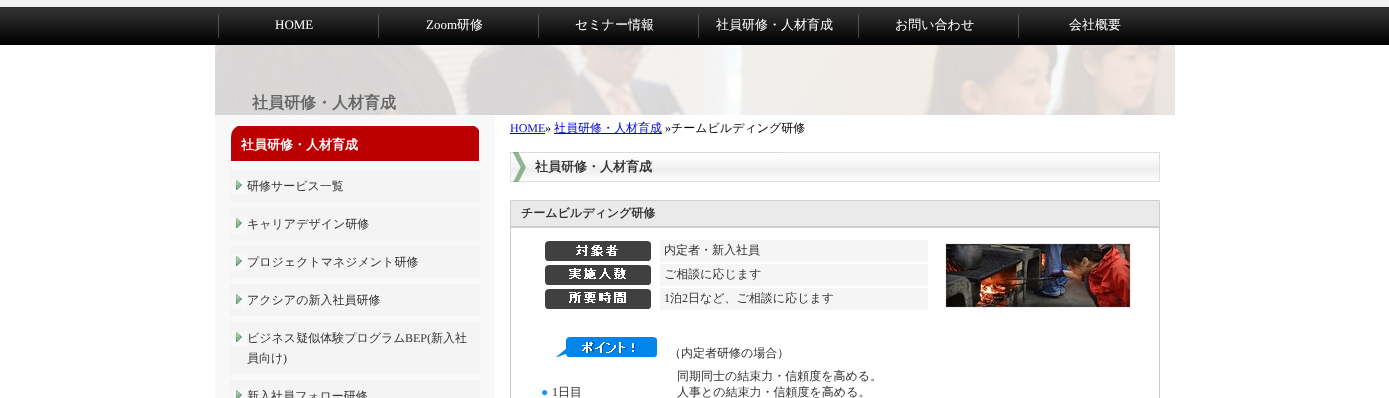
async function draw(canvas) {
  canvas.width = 1389
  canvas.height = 398
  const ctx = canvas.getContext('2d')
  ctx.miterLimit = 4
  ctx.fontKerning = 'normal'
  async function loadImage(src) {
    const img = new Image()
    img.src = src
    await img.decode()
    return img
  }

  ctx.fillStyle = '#fff'
  ctx.fillRect(0, 0, 1389, 398)
  ctx.drawImage(await loadImage('image0.png'), 0, 0, 1389, 45)
  ctx.drawImage(await loadImage('image1.png'), 215, 7, 160, 38)
  ctx.font = '13px Liberation Serif'
  ctx.fillText('HOME', 275, 29)
  ctx.drawImage(await loadImage('image1.png'), 375, 7, 160, 38)
  ctx.fillText('Zoom', 426, 29)
  ctx.font = '500 13px WenQuanYi Zen Hei'
  ctx.fillText('研修', 457, 29)
  ctx.drawImage(await loadImage('image1.png'), 535, 7, 160, 38)
  ctx.fillText('セミナー情報', 575, 29)
  ctx.drawImage(await loadImage('image1.png'), 695, 7, 160, 38)
  ctx.fillText('社員研修・人材育成', 716, 29)
  ctx.drawImage(await loadImage('image1.png'), 855, 7, 160, 38)
  ctx.fillText('お問い合わせ', 895, 29)
  ctx.drawImage(await loadImage('image1.png'), 1015, 7, 160, 38)
  ctx.fillText('会社概要', 1069, 29)
  ctx.drawImage(await loadImage('image2.png'), 215, 45, 960, 70)
  ctx.font = 'bold 16px WenQuanYi Zen Hei'
  ctx.fillStyle = '#666'
  ctx.fillText('社員研修・人材育成', 252, 108)
  ctx.fillStyle = '#f8f8f8'
  ctx.fillRect(215, 115, 280, 283)
  ctx.drawImage(await loadImage('image3.png'), 231, 126, 248, 35)
  ctx.strokeStyle = '#fff'
  ctx.strokeRect(230.5, 125.5, 249, 36)
  ctx.font = 'bold 13px WenQuanYi Zen Hei'
  ctx.fillStyle = '#fff'
  ctx.fillText('社員研修・人材育成', 241, 149)
  ctx.fillStyle = '#f4f4f4'
  ctx.fillRect(230, 170, 250, 32)
  ctx.drawImage(await loadImage('image4.png'), 231, 179, 16, 16)
  ctx.font = '500 12px WenQuanYi Zen Hei'
  ctx.fillStyle = '#333'
  ctx.fillText('研修サービス一覧', 247, 190)
  ctx.fillStyle = '#f4f4f4'
  ctx.fillRect(230, 208, 250, 32)
  ctx.drawImage(await loadImage('image4.png'), 231, 217, 16, 16)
  ctx.fillStyle = '#333'
  ctx.fillText('キャリアデザイン研修', 247, 228)
  ctx.fillStyle = '#f4f4f4'
  ctx.fillRect(230, 246, 250, 32)
  ctx.drawImage(await loadImage('image4.png'), 231, 255, 16, 16)
  ctx.fillStyle = '#333'
  ctx.fillText('プロジェクトマネジメント研修', 247, 266)
  ctx.fillStyle = '#f4f4f4'
  ctx.fillRect(230, 284, 250, 32)
  ctx.drawImage(await loadImage('image4.png'), 231, 293, 16, 16)
  ctx.fillStyle = '#333'
  ctx.fillText('アクシアの新入社員研修', 247, 304)
  ctx.fillStyle = '#f4f4f4'
  ctx.fillRect(230, 322, 250, 52)
  ctx.drawImage(await loadImage('image4.png'), 231, 331, 16, 16)
  ctx.fillStyle = '#333'
  ctx.fillText('ビジネス疑似体験プログラム', 247, 342)
  ctx.font = '12px Liberation Serif'
  ctx.fillText('BEP(', 405, 342)
  ctx.font = '500 12px WenQuanYi Zen Hei'
  ctx.fillText('新入社', 431, 342)
  ctx.fillText('員向け', 247, 362)
  ctx.font = '12px Liberation Serif'
  ctx.fillText(')', 283, 362)
  ctx.fillStyle = '#f4f4f4'
  ctx.fillRect(230, 380, 250, 18)
  ctx.drawImage(await loadImage('image5.png'), 231, 389, 16, 9)
  ctx.font = '500 12px WenQuanYi Zen Hei'
  ctx.fillStyle = '#333'
  ctx.fillText('新入社員フォロー研修', 247, 400)
  ctx.font = '12px Liberation Serif'
  ctx.fillStyle = '#00e'
  ctx.fillText('HOME', 510, 132)
  ctx.fillRect(510, 133, 35, 1)
  ctx.fillStyle = '#000'
  ctx.fillText('»', 545, 132)
  ctx.fillStyle = '#00e'
  ctx.fillRect(554, 133, 108, 1)
  ctx.font = '500 12px WenQuanYi Zen Hei'
  ctx.fillText('社員研修・人材育成', 554, 132)
  ctx.font = '12px Liberation Serif'
  ctx.fillStyle = '#000'
  ctx.fillText('»', 665, 132)
  ctx.font = '500 12px WenQuanYi Zen Hei'
  ctx.fillText('チームビルディング研修', 671, 132)
  ctx.drawImage(await loadImage('image6.png'), 510, 152, 650, 30)
  ctx.font = 'bold 13px WenQuanYi Zen Hei'
  ctx.fillStyle = '#333'
  ctx.fillText('社員研修・人材育成', 535, 171)
  ctx.fillStyle = '#eaeaea'
  ctx.beginPath()
  ctx.rect(510.5, 200.5, 649, 26)
  ctx.fill()
  ctx.strokeStyle = '#cfcfcf'
  ctx.stroke()
  ctx.font = 'bold 12px WenQuanYi Zen Hei'
  ctx.fillStyle = '#333'
  ctx.fillText('チームビルディング研修', 521, 217)
  ctx.strokeStyle = '#ccc'
  ctx.strokeRect(510.5, 227.5, 649, 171)
  ctx.drawImage(await loadImage('image7.png'), 545, 241, 106, 20)
  ctx.fillStyle = '#f5f5f5'
  ctx.fillRect(660, 240, 268, 22)
  ctx.font = '500 12px WenQuanYi Zen Hei'
  ctx.fillStyle = '#333'
  ctx.fillText('内定者・新入社員', 664, 254)
  ctx.drawImage(await loadImage('image8.png'), 945, 243, 186, 65)
  ctx.drawImage(await loadImage('image9.png'), 545, 265, 106, 20)
  ctx.fillStyle = '#f5f5f5'
  ctx.fillRect(660, 264, 268, 22)
  ctx.fillStyle = '#333'
  ctx.fillText('ご相談に応じます', 664, 278)
  ctx.drawImage(await loadImage('image10.png'), 545, 289, 106, 20)
  ctx.fillStyle = '#f5f5f5'
  ctx.fillRect(660, 288, 268, 22)
  ctx.font = '12px Liberation Serif'
  ctx.fillStyle = '#333'
  ctx.fillText('1', 664, 302)
  ctx.font = '500 12px WenQuanYi Zen Hei'
  ctx.fillText('泊', 670, 302)
  ctx.font = '12px Liberation Serif'
  ctx.fillText('2', 682, 302)
  ctx.font = '500 12px WenQuanYi Zen Hei'
  ctx.fillText('日など、ご相談に応じます', 688, 302)
  ctx.drawImage(await loadImage('image11.png'), 556, 337, 101, 20)
  ctx.fillText('（内定者研修の場合）', 669, 357)
  ctx.font = '12px Liberation Serif'
  ctx.fillStyle = '#1e90ff'
  ctx.fillText('●', 541, 396)
  ctx.fillStyle = '#333'
  ctx.fillText('1', 552, 396)
  ctx.font = '500 12px WenQuanYi Zen Hei'
  ctx.fillText('日目', 558, 396)
  ctx.fillText('同期同士の結束力・信頼度を高める。', 677, 380)
  ctx.fillText('人事との結束力・信頼度を高める。', 677, 396)
}

draw(document.querySelector('canvas'))
